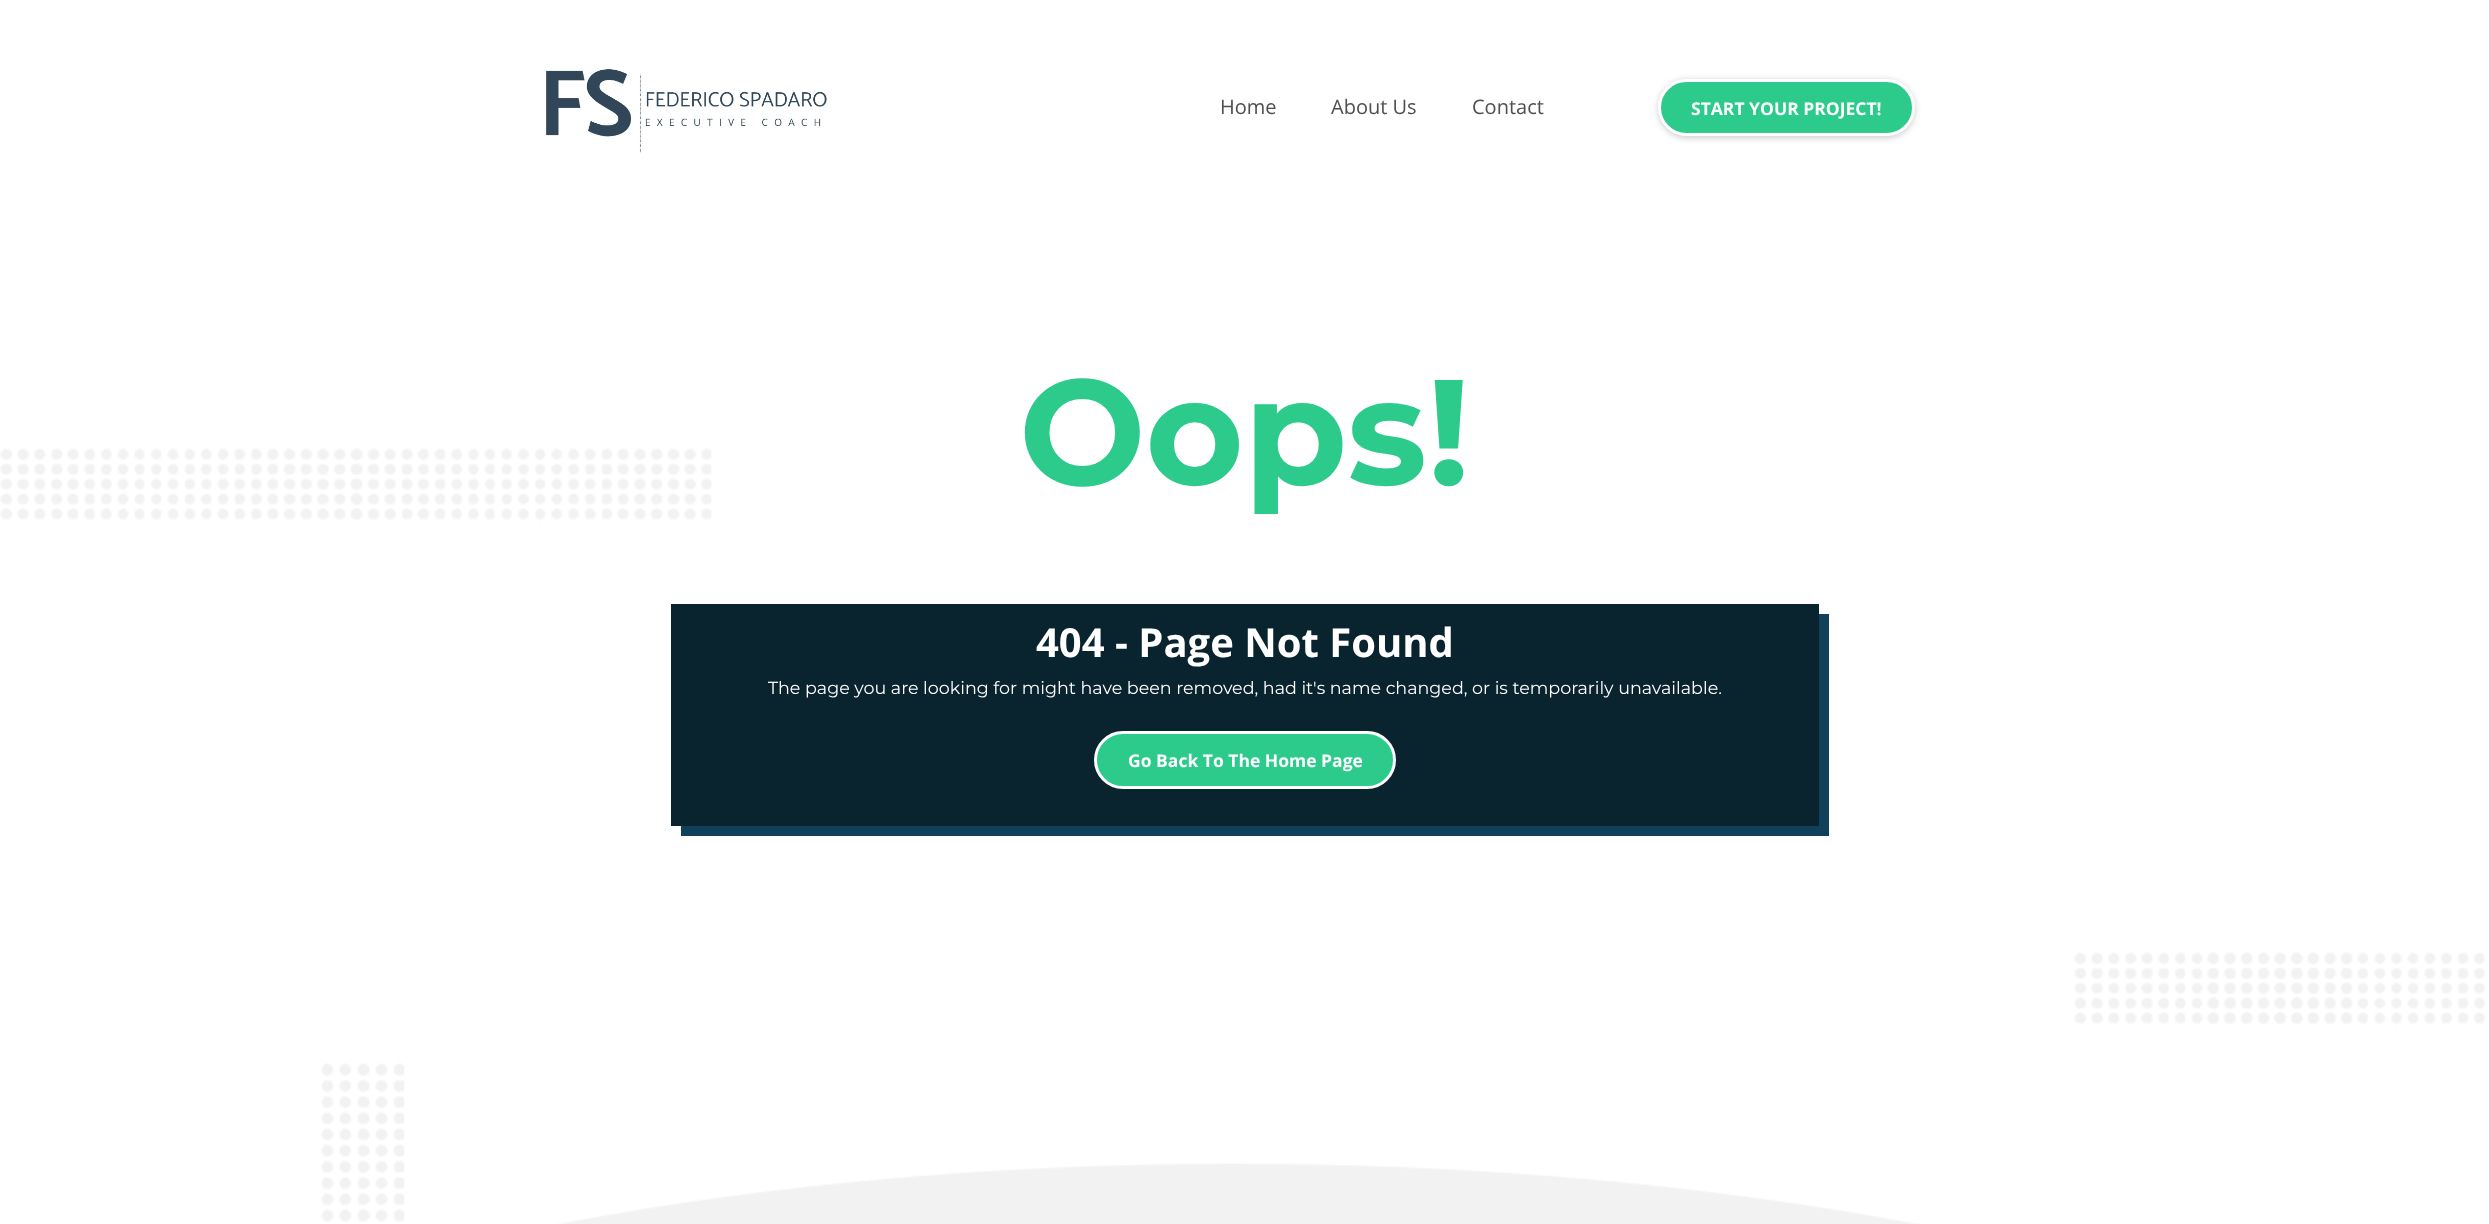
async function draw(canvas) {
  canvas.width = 2489
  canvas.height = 1224
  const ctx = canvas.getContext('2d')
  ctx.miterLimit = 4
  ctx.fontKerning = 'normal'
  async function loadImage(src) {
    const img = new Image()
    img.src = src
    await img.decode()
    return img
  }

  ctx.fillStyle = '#fff'
  ctx.fillRect(0, 0, 2489, 1224)
  ctx.drawImage(await loadImage('image0.png'), 546, 69, 281, 84)
  ctx.font = '20px Open Sans'
  ctx.fillStyle = '#4f4f4f'
  ctx.fillText('Home', 1220, 114)
  ctx.fillText('About Us', 1331, 114)
  ctx.fillText('Contact', 1472, 114)
  ctx.fillStyle = '#00000033'
  ctx.filter = 'blur(3px)'
  ctx.beginPath()
  ctx.roundRect(1658, 80, 257, 58, 29)
  ctx.fill()
  ctx.filter = 'none'
  ctx.fillStyle = '#2cca8b'
  ctx.beginPath()
  ctx.roundRect(1659.5, 80.5, 254, 54, 27)
  ctx.fill()
  ctx.strokeStyle = '#fff'
  ctx.lineWidth = 3
  ctx.stroke()
  ctx.font = 'bold 17.5px Open Sans'
  ctx.fillStyle = '#fff'
  ctx.fillText('START YOUR PROJECT!', 1691, 115)
  ctx.drawImage(await loadImage('image1.png'), 0, 448, 2485, 776)
  ctx.font = '100 150px Montserrat'
  ctx.fillStyle = '#2cca8b'
  ctx.fillText('Oops!', 1019, 485)
  ctx.fillStyle = '#11415a'
  ctx.beginPath()
  ctx.moveTo(681, 826)
  ctx.lineTo(681, 836)
  ctx.lineTo(1829, 836)
  ctx.lineTo(1829, 614)
  ctx.lineTo(1819, 614)
  ctx.lineTo(1819, 826)
  ctx.closePath()
  ctx.fill()
  ctx.fillStyle = '#09232f'
  ctx.fillRect(671, 604, 1148, 222)
  ctx.font = 'bold 40px Open Sans'
  ctx.fillStyle = '#fff'
  ctx.fillText('404 - Page Not Found', 1036, 657)
  ctx.font = '100 17.5px "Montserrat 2"'
  ctx.fillText('The page you are looking for might have been removed, had it\'s name changed, or is temporarily unavailable.', 768, 694)
  ctx.fillStyle = '#2cca8b'
  ctx.beginPath()
  ctx.roundRect(1095.5, 732.5, 299, 55, 27.5)
  ctx.fill()
  ctx.stroke()
  ctx.font = 'bold 17.5px Open Sans'
  ctx.fillStyle = '#fff'
  ctx.fillText('Go Back To The Home Page', 1128, 767)
}

draw(document.querySelector('canvas'))
